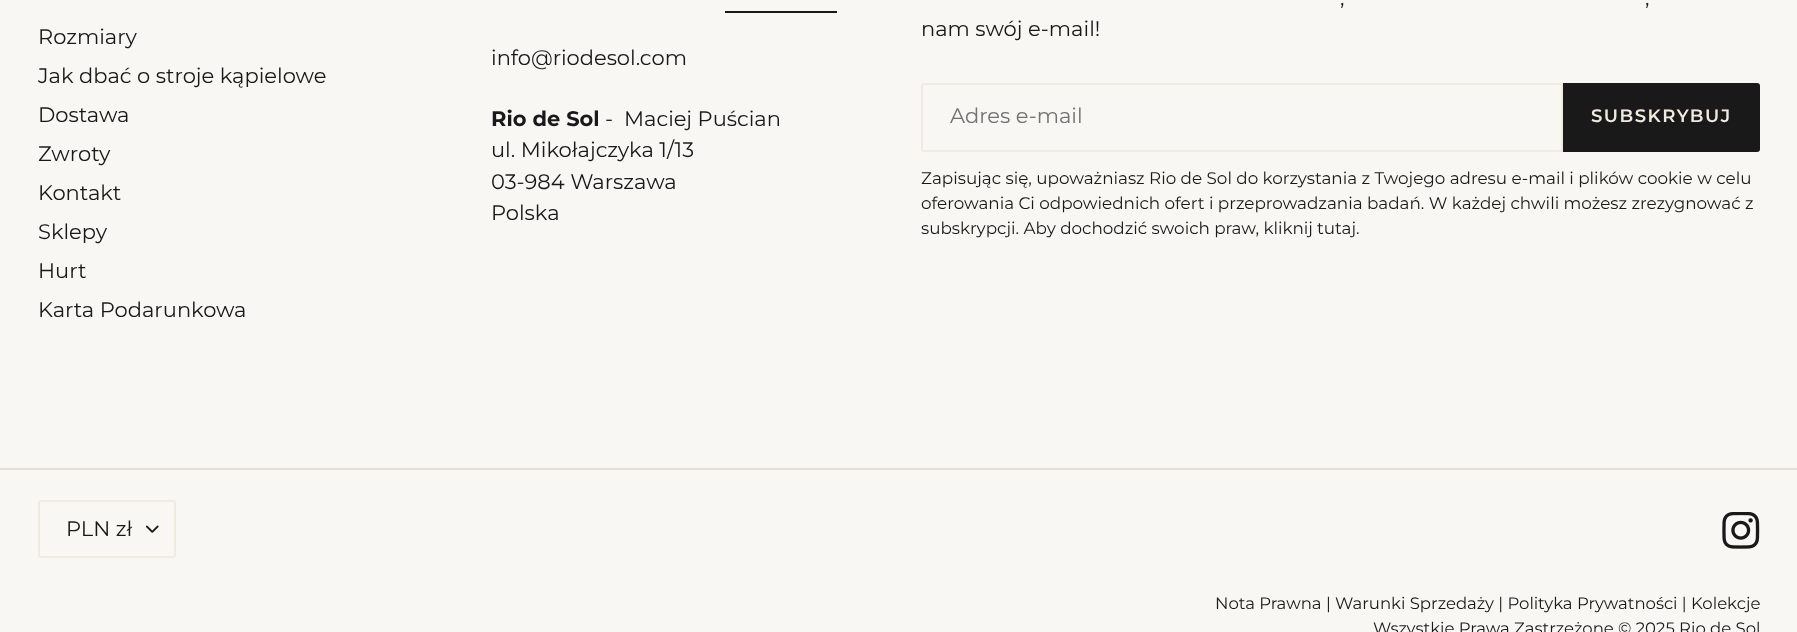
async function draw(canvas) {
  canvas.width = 1797
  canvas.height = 632
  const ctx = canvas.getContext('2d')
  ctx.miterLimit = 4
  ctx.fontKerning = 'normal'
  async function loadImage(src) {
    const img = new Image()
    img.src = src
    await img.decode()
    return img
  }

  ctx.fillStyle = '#f9f7f4'
  ctx.fillRect(0, 0, 1797, 632)
  ctx.font = '21px Montserrat'
  ctx.fillStyle = '#191919'
  ctx.fillText('Rozmiary', 38, 44)
  ctx.fillText('Jak dbać o stroje kąpielowe', 38, 83)
  ctx.fillText('Dostawa', 38, 122)
  ctx.fillText('Zwroty', 38, 161)
  ctx.fillText('Kontakt', 38, 200)
  ctx.fillText('Sklepy', 38, 239)
  ctx.fillText('Hurt', 38, 278)
  ctx.fillText('Karta Podarunkowa', 38, 317)
  ctx.fillRect(725, 11, 112, 2)
  ctx.fillText('info@riodesol.com', 491, 65)
  ctx.font = 'bold 21px Montserrat'
  ctx.fillText('Rio de Sol', 491, 126)
  ctx.font = '21px Montserrat'
  ctx.fillText('-  Maciej Puścian', 605, 126)
  ctx.fillText('ul. Mikołajczyka 1/13', 491, 157)
  ctx.fillText('03-984 Warszawa', 491, 189)
  ctx.fillText('Polska', 491, 220)
  ctx.fillText(',', 1340, 5)
  ctx.fillText(',', 1645, 5)
  ctx.fillText('nam swój e-mail!', 921, 36)
  ctx.beginPath()
  ctx.roundRect(922, 84, 640, 67, [2, 0, 0, 2])
  ctx.strokeStyle = '#f0ebe1'
  ctx.lineWidth = 2
  ctx.stroke()
  ctx.fillStyle = '#737271'
  ctx.fillText('Adres e-mail', 950, 123)
  ctx.fillStyle = '#191919'
  ctx.beginPath()
  ctx.roundRect(1563, 83, 197, 69, [0, 3, 3, 0])
  ctx.fill()
  ctx.letterSpacing = '1.5px'
  ctx.font = '600 18px Montserrat'
  ctx.fillStyle = '#f0ebe1'
  ctx.fillText('SUBSKRYBUJ', 1591, 122)
  ctx.letterSpacing = '0px'
  ctx.font = '16.8px Montserrat'
  ctx.fillStyle = '#191919'
  ctx.fillText('Zapisując się, upoważniasz Rio de Sol do korzystania z Twojego adresu e-mail i plików cookie w celu', 921, 184)
  ctx.fillText('oferowania Ci odpowiednich ofert i przeprowadzania badań. W każdej chwili możesz zrezygnować z', 921, 209)
  ctx.fillText('subskrypcji. Aby dochodzić swoich praw, kliknij', 921, 234)
  ctx.fillText('tutaj.', 1317, 234)
  ctx.fillStyle = '#e7dfd3'
  ctx.fillRect(0, 468, 1797, 2)
  ctx.drawImage(await loadImage('image0.png'), 146, 525, 13, 8)
  ctx.beginPath()
  ctx.roundRect(39, 501, 136, 56, 2)
  ctx.stroke()
  ctx.font = '21px Montserrat'
  ctx.fillStyle = '#191919'
  ctx.fillText('PLN zł', 66, 536)
  ctx.drawImage(await loadImage('image1.png'), 1722, 512, 38, 37)
  ctx.font = '16.5px Montserrat'
  ctx.fillText('Nota Prawna | Warunki Sprzedaży | Polityka Prywatności | Kolekcje', 1215, 609)
  ctx.fillText('Wszystkie Prawa Zastrzeżone © 2025 Rio de Sol', 1373, 634)
}

draw(document.querySelector('canvas'))
